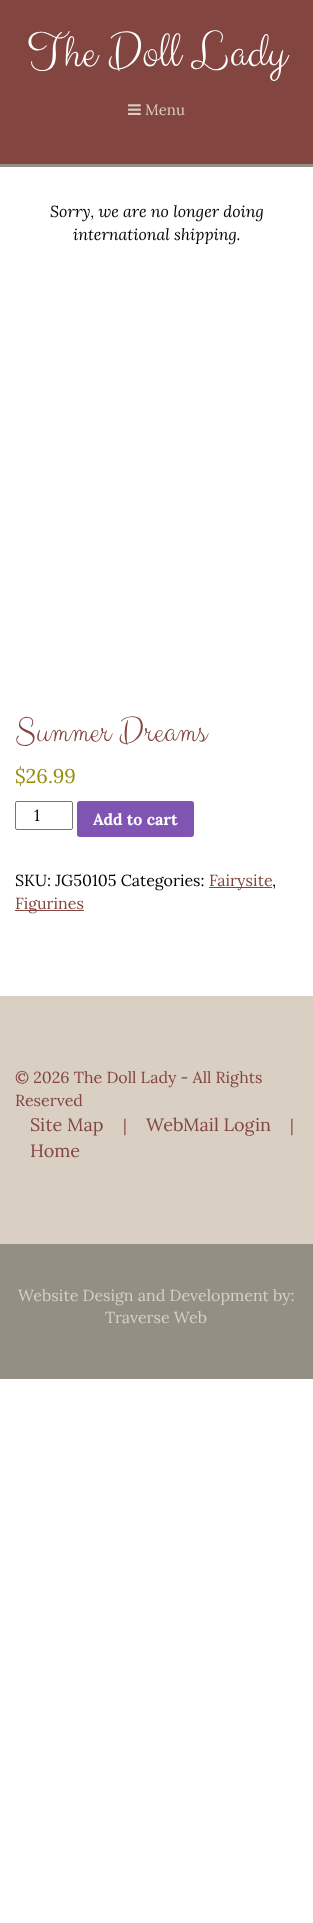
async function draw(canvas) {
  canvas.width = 313
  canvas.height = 1923
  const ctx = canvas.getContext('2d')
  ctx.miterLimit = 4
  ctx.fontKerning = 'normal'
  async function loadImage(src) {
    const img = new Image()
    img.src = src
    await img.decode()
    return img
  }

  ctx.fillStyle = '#fff'
  ctx.fillRect(0, 0, 313, 1923)
  ctx.fillStyle = '#824540'
  ctx.fillRect(0, 0, 313, 164)
  ctx.fillStyle = '#938f84'
  ctx.fillRect(0, 164, 313, 3)
  ctx.font = '50px Clicker Script'
  ctx.fillStyle = '#fff'
  ctx.fillText('The Doll Lady', 27, 67)
  ctx.drawImage(await loadImage('image0.png'), 128, 104, 13, 11)
  ctx.font = '15px Lora'
  ctx.fillStyle = '#d9cfc3'
  ctx.fillText('Menu', 145, 115)
  ctx.font = 'italic 16px Lora'
  ctx.fillStyle = '#000'
  ctx.fillText('Sorry, we are no longer doing', 50, 217)
  ctx.fillText('international shipping.', 73, 240)
  ctx.font = '36px Clicker Script'
  ctx.fillStyle = '#824540'
  ctx.fillText('Summer Dreams', 15, 742)
  ctx.font = '20px Lora'
  ctx.fillStyle = '#958e09'
  ctx.fillText('$26.99', 15, 783)
  ctx.beginPath()
  ctx.roundRect(15.5, 801.5, 57, 28, 1.5)
  ctx.strokeStyle = '#767676'
  ctx.stroke()
  ctx.font = '16px Lora'
  ctx.fillStyle = '#000'
  ctx.fillText('1', 34, 821)
  ctx.fillStyle = '#7f54b3'
  ctx.beginPath()
  ctx.roundRect(77, 801, 117, 36, 3)
  ctx.fill()
  ctx.font = 'bold 16px Lora'
  ctx.fillStyle = '#fff'
  ctx.fillText('Add to cart', 93, 825)
  ctx.font = '16px Lora'
  ctx.fillStyle = '#000'
  ctx.fillText('SKU: JG50105 Categories:', 15, 886)
  ctx.fillStyle = '#824540'
  ctx.fillRect(209, 887, 63, 1)
  ctx.fillText('Fairysite', 209, 886)
  ctx.fillStyle = '#000'
  ctx.fillText(',', 272, 886)
  ctx.fillStyle = '#824540'
  ctx.fillRect(15, 910, 69, 1)
  ctx.fillText('Figurines', 15, 909)
  ctx.fillStyle = '#d9cfc3'
  ctx.fillRect(0, 996, 313, 248)
  ctx.fillStyle = '#824540'
  ctx.fillText('© 2026 The Doll Lady - All Rights', 15, 1083)
  ctx.fillText('Reserved', 15, 1106)
  ctx.font = '18px Lora'
  ctx.fillText('Site Map', 30, 1131)
  ctx.font = '16px Lora'
  ctx.fillText('|', 123, 1131)
  ctx.font = '18px Lora'
  ctx.fillText('WebMail Login', 146, 1131)
  ctx.font = '16px Lora'
  ctx.fillText('|', 290, 1131)
  ctx.font = '18px Lora'
  ctx.fillText('Home', 30, 1157)
  ctx.fillStyle = '#938f84'
  ctx.fillRect(0, 1244, 313, 135)
  ctx.font = '16px Lora'
  ctx.fillStyle = '#d9cfc3'
  ctx.fillText('Website Design and Development by:', 18, 1301)
  ctx.fillText('Traverse Web', 105, 1323)
}

draw(document.querySelector('canvas'))
